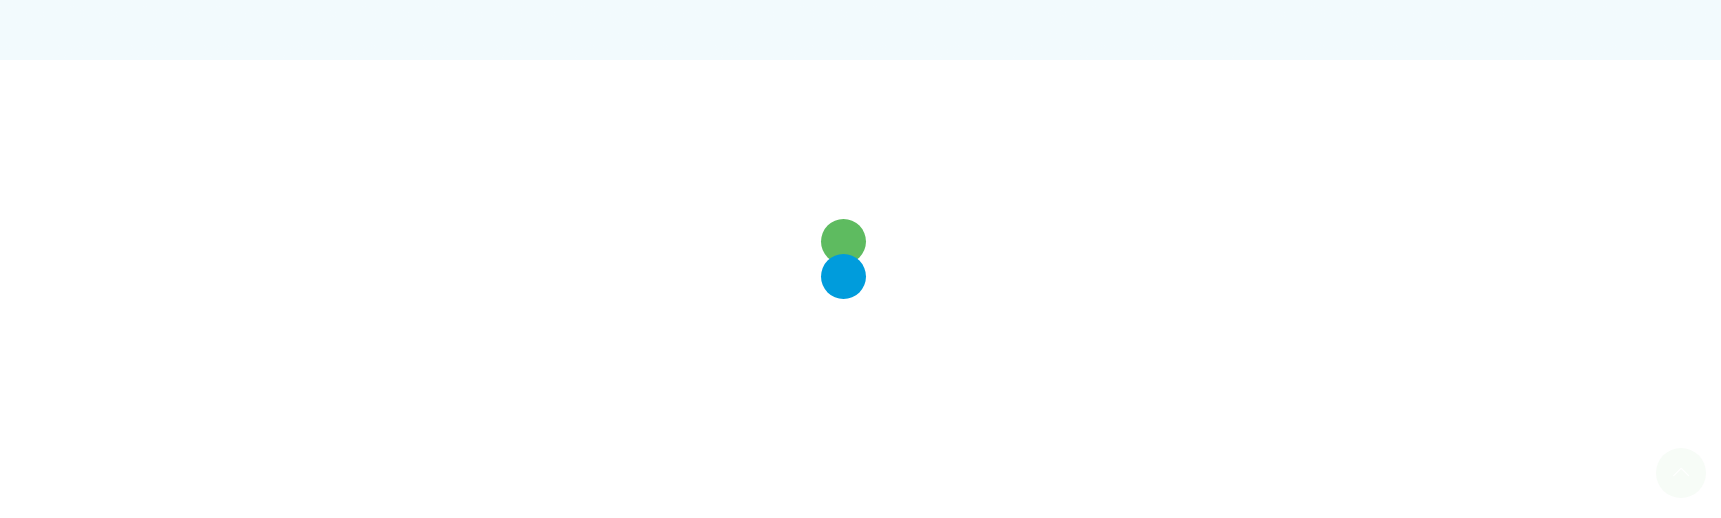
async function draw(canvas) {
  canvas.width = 1721
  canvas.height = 518
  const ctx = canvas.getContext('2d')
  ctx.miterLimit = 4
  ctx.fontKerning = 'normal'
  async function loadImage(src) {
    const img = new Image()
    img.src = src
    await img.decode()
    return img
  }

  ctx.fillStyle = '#fff'
  ctx.fillRect(0, 0, 1721, 518)
  ctx.drawImage(await loadImage('image0.png'), 0, 0, 1721, 60)
  ctx.fillStyle = '#5ebb60'
  ctx.beginPath()
  ctx.arc(843.5, 241.5, 22.5, 0, 2 * Math.PI)
  ctx.fill()
  ctx.fillStyle = '#009cdc'
  ctx.beginPath()
  ctx.arc(843.5, 276.5, 22.5, 0, 2 * Math.PI)
  ctx.fill()
  ctx.fillStyle = '#f7fcf7'
  ctx.beginPath()
  ctx.arc(1681, 473, 25, 0, 2 * Math.PI)
  ctx.fill()
  ctx.drawImage(await loadImage('image1.png'), 1673, 467, 17, 10)
}

draw(document.querySelector('canvas'))
